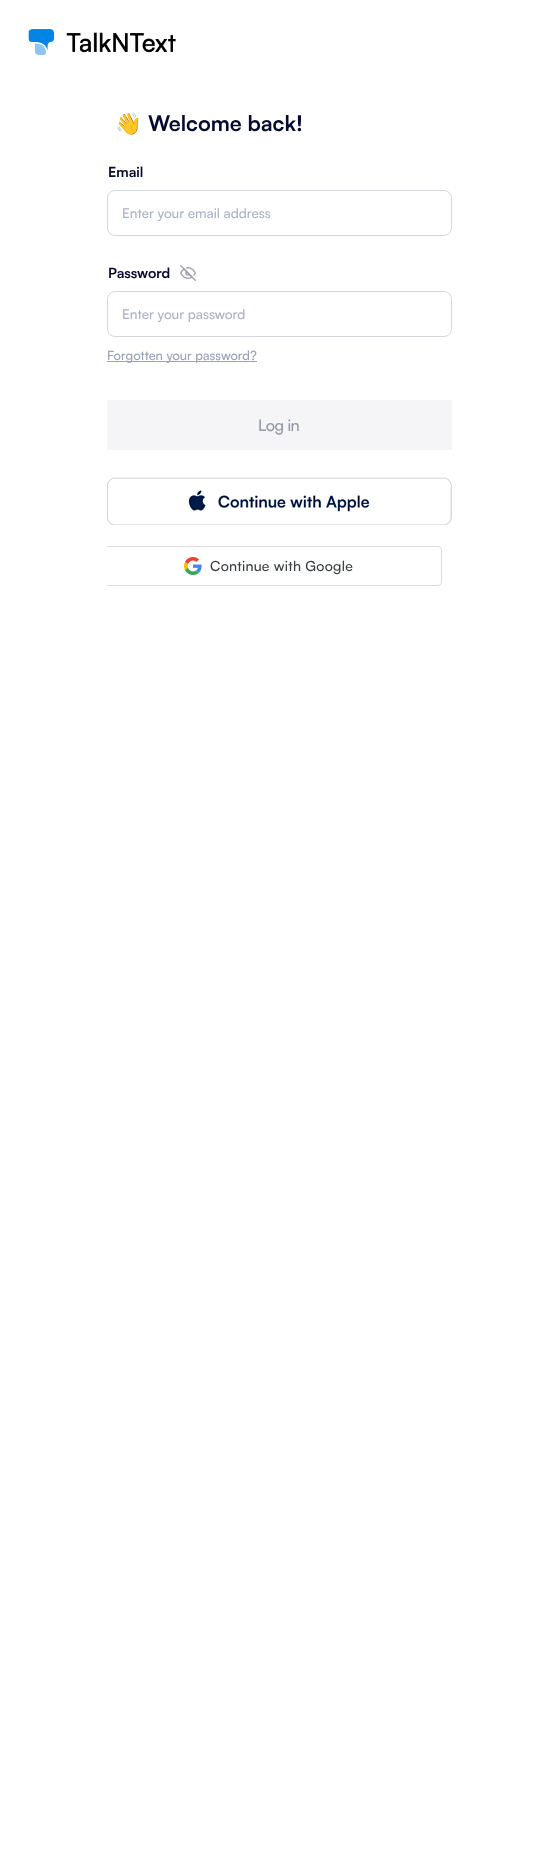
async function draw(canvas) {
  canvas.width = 558
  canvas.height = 1862
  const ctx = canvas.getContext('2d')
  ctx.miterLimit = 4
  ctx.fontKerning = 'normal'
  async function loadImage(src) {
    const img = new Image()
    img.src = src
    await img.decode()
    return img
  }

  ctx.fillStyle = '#fff'
  ctx.fillRect(0, 0, 558, 1862)
  ctx.drawImage(await loadImage('image0.png'), 28, 29, 148, 26)
  ctx.font = 'bold 21.5px Noto Color Emoji'
  ctx.fillStyle = '#050b30'
  ctx.fillText('👋️', 115, 131)
  ctx.font = 'bold 21.5px Satoshi'
  ctx.fillText('Welcome back!', 148, 131)
  ctx.font = 'bold 14px Satoshi'
  ctx.fillText('Email', 108, 177)
  ctx.beginPath()
  ctx.roundRect(107.5, 190.5, 344, 45, 7.5)
  ctx.strokeStyle = '#d7d8de'
  ctx.stroke()
  ctx.font = '500 13.4px Satoshi'
  ctx.fillStyle = '#a9b2c7'
  ctx.fillText('Enter your email address', 122, 218)
  ctx.font = 'bold 14px Satoshi'
  ctx.fillStyle = '#050b30'
  ctx.fillText('Password', 108, 278)
  ctx.drawImage(await loadImage('image1.png'), 180, 265, 16, 16)
  ctx.beginPath()
  ctx.roundRect(107.5, 291.5, 344, 45, 7.5)
  ctx.stroke()
  ctx.font = '500 13.4px Satoshi'
  ctx.fillStyle = '#a9b2c7'
  ctx.fillText('Enter your password', 122, 319)
  ctx.fillStyle = '#97a3b6'
  ctx.fillRect(107, 361, 150, 1)
  ctx.font = '500 12.75px Satoshi'
  ctx.fillText('Forgotten your password?', 107, 360)
  ctx.fillStyle = '#050b300a'
  ctx.fillRect(107, 400, 345, 50)
  ctx.letterSpacing = '-0.5px'
  ctx.font = '500 16px Satoshi'
  ctx.fillStyle = '#9598a7'
  ctx.fillText('Log in', 258, 431)
  ctx.drawImage(await loadImage('image2.png'), 107, 477, 345, 48)
  ctx.save()
  ctx.beginPath()
  ctx.rect(107, 96, 345, 1736)
  ctx.clip()
  ctx.beginPath()
  ctx.roundRect(97.5, 546.5, 344, 39, 3.5)
  ctx.strokeStyle = '#dadce0'
  ctx.stroke()
  ctx.restore()
  ctx.drawImage(await loadImage('image3.png'), 184, 557, 18, 18)
  ctx.letterSpacing = '0.25px'
  ctx.font = '500 14px Satoshi'
  ctx.fillStyle = '#3c4043'
  ctx.fillText('Continue with Google', 210, 571)
}

draw(document.querySelector('canvas'))
